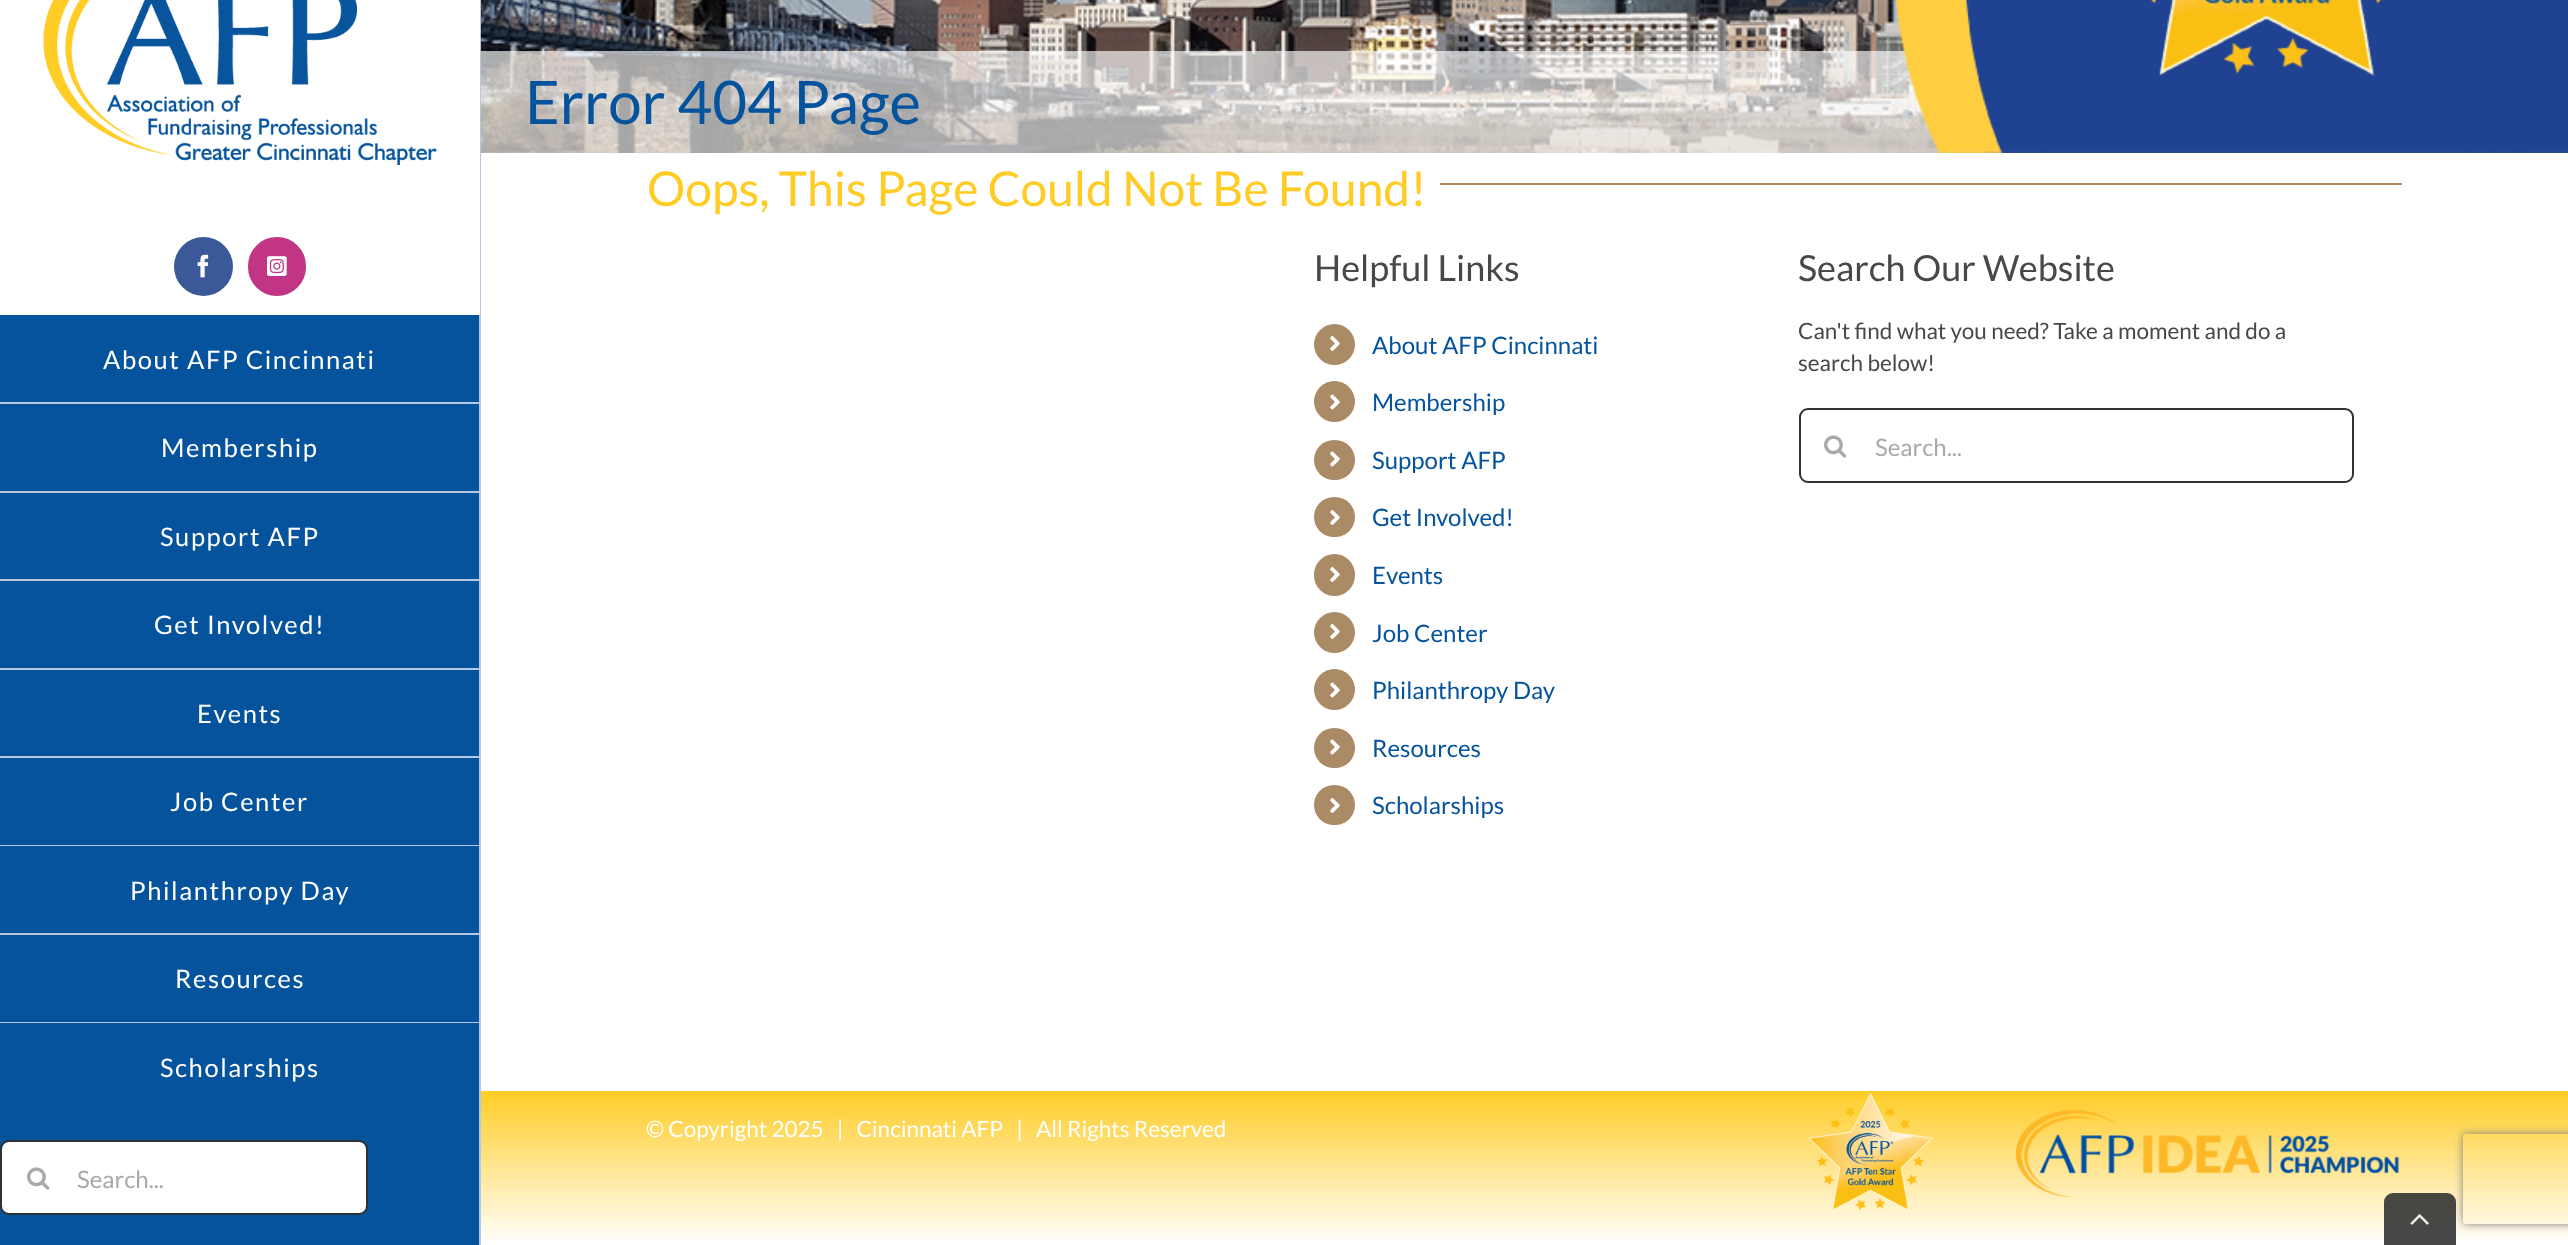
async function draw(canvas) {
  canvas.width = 2568
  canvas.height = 1245
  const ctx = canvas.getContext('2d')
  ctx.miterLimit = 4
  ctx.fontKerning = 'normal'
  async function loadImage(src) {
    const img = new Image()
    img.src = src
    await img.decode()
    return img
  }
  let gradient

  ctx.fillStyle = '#fff'
  ctx.fillRect(0, 0, 2568, 1245)
  ctx.drawImage(await loadImage('image0.png'), 481, 0, 2087, 153)
  ctx.fillStyle = '#ffffffa6'
  ctx.fillRect(481, 51, 2087, 102)
  ctx.font = '60px Lato'
  ctx.fillStyle = '#05539c'
  ctx.fillText('Error 404 Page', 525, 124)
  ctx.drawImage(await loadImage('image1.png'), 1895, 0, 673, 153)
  ctx.fillRect(0, 315, 479, 930)
  ctx.fillStyle = '#b6c8e1'
  ctx.fillRect(479, 0, 2, 1245)
  ctx.drawImage(await loadImage('image2.png'), 0, 0, 480, 315)
  ctx.fillStyle = '#3b5998'
  ctx.beginPath()
  ctx.arc(203.5, 266.5, 28.5, 0, 2 * Math.PI)
  ctx.fill()
  ctx.strokeStyle = '#3b5998'
  ctx.lineWidth = 2
  ctx.stroke()
  ctx.drawImage(await loadImage('image3.png'), 197, 254, 12, 24)
  ctx.fillStyle = '#c13584'
  ctx.beginPath()
  ctx.roundRect(249, 238, 56, 57, 28)
  ctx.fill()
  ctx.strokeStyle = '#c13584'
  ctx.stroke()
  ctx.drawImage(await loadImage('image4.png'), 267, 256, 20, 20)
  ctx.fillStyle = '#b6c8e1'
  ctx.fillRect(0, 402, 480, 2)
  ctx.letterSpacing = '1.6px'
  ctx.font = '25.5px Lato'
  ctx.fillStyle = '#fff'
  ctx.fillText('About AFP Cincinnati', 103, 369)
  ctx.fillStyle = '#b6c8e1'
  ctx.fillRect(0, 491, 480, 2)
  ctx.fillStyle = '#fff'
  ctx.fillText('Membership', 161, 457)
  ctx.fillStyle = '#b6c8e1'
  ctx.fillRect(0, 579, 480, 2)
  ctx.fillStyle = '#fff'
  ctx.fillText('Support AFP', 160, 546)
  ctx.fillStyle = '#b6c8e1'
  ctx.fillRect(0, 668, 480, 2)
  ctx.fillStyle = '#fff'
  ctx.fillText('Get Involved!', 154, 634)
  ctx.fillStyle = '#b6c8e1'
  ctx.fillRect(0, 756, 480, 2)
  ctx.fillStyle = '#fff'
  ctx.fillText('Events', 197, 723)
  ctx.fillStyle = '#b6c8e1'
  ctx.fillRect(0, 845, 480, 1)
  ctx.fillStyle = '#fff'
  ctx.fillText('Job Center', 170, 811)
  ctx.fillStyle = '#b6c8e1'
  ctx.fillRect(0, 933, 480, 2)
  ctx.fillStyle = '#fff'
  ctx.fillText('Philanthropy Day', 130, 900)
  ctx.fillStyle = '#b6c8e1'
  ctx.fillRect(0, 1022, 480, 1)
  ctx.fillStyle = '#fff'
  ctx.fillText('Resources', 175, 988)
  ctx.fillText('Scholarships', 160, 1077)
  ctx.beginPath()
  ctx.roundRect(1, 1141, 366, 73, 8)
  ctx.fill()
  ctx.strokeStyle = '#2e3135'
  ctx.stroke()
  ctx.drawImage(await loadImage('image5.png'), 27, 1167, 23, 23)
  ctx.letterSpacing = '0px'
  ctx.font = '24px Lato'
  ctx.fillStyle = '#aaa9a9'
  ctx.fillText('Search...', 77, 1188)
  ctx.font = '48px Lato'
  ctx.fillStyle = '#ffcc25'
  ctx.fillText('Oops, This Page Could Not Be Found!', 647, 206)
  ctx.fillStyle = '#ae895d'
  ctx.fillRect(1440, 183, 962, 2)
  ctx.font = '36px Lato'
  ctx.fillStyle = '#484848'
  ctx.fillText('Helpful Links', 1314, 281)
  ctx.fillStyle = '#ab8b65'
  ctx.beginPath()
  ctx.arc(1334.5, 344.5, 20.5, 0, 2 * Math.PI)
  ctx.fill()
  ctx.drawImage(await loadImage('image6.png'), 1330, 336, 10, 15)
  ctx.font = '24px Lato'
  ctx.fillStyle = '#05539c'
  ctx.fillText('About AFP Cincinnati', 1372, 354)
  ctx.fillStyle = '#ab8b65'
  ctx.beginPath()
  ctx.arc(1334.5, 401.5, 20.5, 0, 2 * Math.PI)
  ctx.fill()
  ctx.drawImage(await loadImage('image7.png'), 1330, 394, 10, 16)
  ctx.fillStyle = '#05539c'
  ctx.fillText('Membership', 1372, 411)
  ctx.fillStyle = '#ab8b65'
  ctx.beginPath()
  ctx.roundRect(1314, 440, 41, 40, 20)
  ctx.fill()
  ctx.drawImage(await loadImage('image7.png'), 1330, 451, 10, 16)
  ctx.fillStyle = '#05539c'
  ctx.fillText('Support AFP', 1372, 469)
  ctx.fillStyle = '#ab8b65'
  ctx.beginPath()
  ctx.roundRect(1314, 497, 41, 40, 20)
  ctx.fill()
  ctx.drawImage(await loadImage('image6.png'), 1330, 510, 10, 15)
  ctx.fillStyle = '#05539c'
  ctx.fillText('Get Involved!', 1372, 526)
  ctx.fillStyle = '#ab8b65'
  ctx.beginPath()
  ctx.roundRect(1314, 554, 41, 42, 20.5)
  ctx.fill()
  ctx.drawImage(await loadImage('image6.png'), 1330, 567, 10, 15)
  ctx.fillStyle = '#05539c'
  ctx.fillText('Events', 1372, 584)
  ctx.fillStyle = '#ab8b65'
  ctx.beginPath()
  ctx.arc(1334.5, 632.5, 20.5, 0, 2 * Math.PI)
  ctx.fill()
  ctx.drawImage(await loadImage('image6.png'), 1330, 624, 10, 15)
  ctx.fillStyle = '#05539c'
  ctx.fillText('Job Center', 1372, 642)
  ctx.fillStyle = '#ab8b65'
  ctx.beginPath()
  ctx.arc(1334.5, 689.5, 20.5, 0, 2 * Math.PI)
  ctx.fill()
  ctx.drawImage(await loadImage('image7.png'), 1330, 682, 10, 16)
  ctx.fillStyle = '#05539c'
  ctx.fillText('Philanthropy Day', 1372, 699)
  ctx.fillStyle = '#ab8b65'
  ctx.beginPath()
  ctx.roundRect(1314, 728, 41, 40, 20)
  ctx.fill()
  ctx.drawImage(await loadImage('image7.png'), 1330, 739, 10, 16)
  ctx.fillStyle = '#05539c'
  ctx.fillText('Resources', 1372, 757)
  ctx.fillStyle = '#ab8b65'
  ctx.beginPath()
  ctx.roundRect(1314, 785, 41, 40, 20)
  ctx.fill()
  ctx.drawImage(await loadImage('image6.png'), 1330, 798, 10, 15)
  ctx.fillStyle = '#05539c'
  ctx.fillText('Scholarships', 1372, 814)
  ctx.font = '36px Lato'
  ctx.fillStyle = '#484848'
  ctx.fillText('Search Our Website', 1798, 281)
  ctx.font = '22.5px Lato'
  ctx.fillText('Can\'t find what you need? Take a moment and do a', 1798, 339)
  ctx.fillText('search below!', 1798, 371)
  ctx.beginPath()
  ctx.roundRect(1800, 409, 553, 73, 8)
  ctx.stroke()
  ctx.drawImage(await loadImage('image5.png'), 1824, 435, 23, 23)
  ctx.font = '24px Lato'
  ctx.fillStyle = '#aaa9a9'
  ctx.fillText('Search...', 1875, 456)
  gradient = ctx.createLinearGradient(1524, 1090, 1524, 1245)
  gradient.addColorStop(0, '#ffcc25')
  gradient.addColorStop(1, '#fff')
  ctx.fillStyle = gradient
  ctx.fillRect(481, 1091, 2087, 152)
  ctx.font = '22.5px Lato'
  ctx.fillStyle = '#fff'
  ctx.fillText('© Copyright 2025   |   Cincinnati AFP   |   All Rights Reserved', 646, 1137)
  ctx.drawImage(await loadImage('image8.png'), 1808, 1092, 125, 119)
  ctx.drawImage(await loadImage('image9.png'), 2016, 1110, 384, 87)
  ctx.save()
  ctx.beginPath()
  ctx.moveTo(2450, 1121)
  ctx.lineTo(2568, 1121)
  ctx.lineTo(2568, 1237)
  ctx.lineTo(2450, 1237)
  ctx.closePath()
  ctx.moveTo(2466, 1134)
  ctx.lineTo(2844, 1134)
  ctx.bezierCurveTo(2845.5, 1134, 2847, 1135.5, 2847, 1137)
  ctx.lineTo(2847, 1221)
  ctx.bezierCurveTo(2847, 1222.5, 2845.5, 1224, 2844, 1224)
  ctx.lineTo(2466, 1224)
  ctx.bezierCurveTo(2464.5, 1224, 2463, 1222.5, 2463, 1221)
  ctx.lineTo(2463, 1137)
  ctx.bezierCurveTo(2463, 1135.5, 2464.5, 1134, 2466, 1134)
  ctx.closePath()
  ctx.clip('evenodd')
  ctx.fillStyle = '#808080'
  ctx.filter = 'blur(4px)'
  ctx.beginPath()
  ctx.roundRect(2463, 1134, 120, 90, 3)
  ctx.fill()
  ctx.filter = 'none'
  ctx.restore()
  ctx.fillStyle = '#333333e6'
  ctx.beginPath()
  ctx.roundRect(2384, 1193, 72, 52, [9, 9, 0, 0])
  ctx.fill()
  ctx.drawImage(await loadImage('image10.png'), 2410, 1214, 19, 11)
}

draw(document.querySelector('canvas'))
